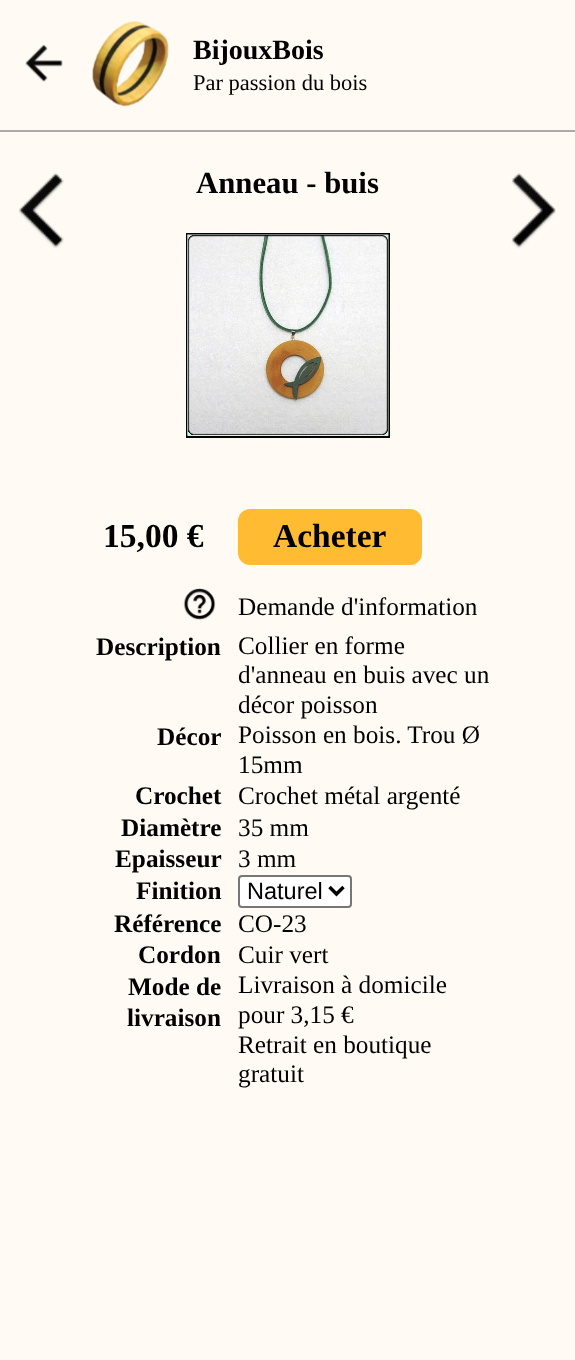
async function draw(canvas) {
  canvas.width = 575
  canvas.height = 1360
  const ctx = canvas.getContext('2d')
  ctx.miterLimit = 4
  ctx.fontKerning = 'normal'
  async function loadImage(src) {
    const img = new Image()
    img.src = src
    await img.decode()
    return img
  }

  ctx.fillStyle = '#fffaf4'
  ctx.fillRect(0, 0, 575, 1360)
  ctx.fillStyle = '#aaa'
  ctx.fillRect(0, 130, 575, 2)
  ctx.drawImage(await loadImage('image0.png'), 25, 44, 38, 38)
  ctx.drawImage(await loadImage('image1.png'), 92, 21, 77, 86)
  ctx.font = 'bold 28px Liberation Serif'
  ctx.fillStyle = '#000'
  ctx.fillText('BijouxBois', 193, 59)
  ctx.font = '22.5px Liberation Serif'
  ctx.fillText('Par passion du bois', 193, 90)
  ctx.drawImage(await loadImage('image2.png'), 18, 173, 46, 76)
  ctx.font = 'bold 30.75px Liberation Serif'
  ctx.fillText('Anneau - buis', 196, 193)
  ctx.strokeStyle = '#000'
  ctx.lineWidth = 2
  ctx.strokeRect(187, 234, 202, 203)
  ctx.drawImage(await loadImage('image3.png'), 187, 234, 202, 202)
  ctx.font = 'bold 33.5px Liberation Serif'
  ctx.fillText('15,00 €', 103, 547)
  ctx.fillStyle = '#ffbb32'
  ctx.beginPath()
  ctx.roundRect(238, 509, 184, 56, 12)
  ctx.fill()
  ctx.fillStyle = '#000'
  ctx.fillText('Acheter', 273, 547)
  ctx.drawImage(await loadImage('image4.png'), 183, 588, 33, 32)
  ctx.font = '25.25px Liberation Serif'
  ctx.fillText('Demande d\'information', 238, 615)
  ctx.font = 'bold 25.25px Liberation Serif'
  ctx.fillText('Description', 96, 655)
  ctx.font = '25.25px Liberation Serif'
  ctx.fillText('Collier en forme', 238, 654)
  ctx.fillText('d\'anneau en buis avec un', 238, 683)
  ctx.fillText('décor poisson', 238, 713)
  ctx.font = 'bold 25.25px Liberation Serif'
  ctx.fillText('Décor', 157, 745)
  ctx.font = '25.25px Liberation Serif'
  ctx.fillText('Poisson en bois. Trou Ø', 238, 743)
  ctx.fillText('15mm', 238, 773)
  ctx.font = 'bold 25.25px Liberation Serif'
  ctx.fillText('Crochet', 135, 804)
  ctx.font = '25.25px Liberation Serif'
  ctx.fillText('Crochet métal argenté', 238, 804)
  ctx.font = 'bold 25.25px Liberation Serif'
  ctx.fillText('Diamètre', 121, 836)
  ctx.font = '25.25px Liberation Serif'
  ctx.fillText('35 mm', 238, 836)
  ctx.font = 'bold 25.25px Liberation Serif'
  ctx.fillText('Epaisseur', 115, 867)
  ctx.font = '25.25px Liberation Serif'
  ctx.fillText('3 mm', 238, 867)
  ctx.font = 'bold 25.25px Liberation Serif'
  ctx.fillText('Finition', 136, 899)
  ctx.fillStyle = '#fff'
  ctx.beginPath()
  ctx.roundRect(239, 876, 112, 31, 3)
  ctx.fill()
  ctx.strokeStyle = '#767676'
  ctx.stroke()
  ctx.beginPath()
  ctx.moveTo(329.5, 887)
  ctx.lineTo(336.5, 894)
  ctx.lineTo(343.5, 887)
  ctx.strokeStyle = '#000'
  ctx.lineWidth = 3.5
  ctx.stroke()
  ctx.font = '23.5px Liberation Sans'
  ctx.fillStyle = '#000'
  ctx.fillText('Naturel', 247, 899)
  ctx.font = 'bold 25.25px Liberation Serif'
  ctx.fillText('Référence', 114, 932)
  ctx.font = '25.25px Liberation Serif'
  ctx.fillText('CO-23', 238, 932)
  ctx.font = 'bold 25.25px Liberation Serif'
  ctx.fillText('Cordon', 138, 963)
  ctx.font = '25.25px Liberation Serif'
  ctx.fillText('Cuir vert', 238, 963)
  ctx.font = 'bold 25.25px Liberation Serif'
  ctx.fillText('Mode de', 128, 995)
  ctx.fillText('livraison', 127, 1026)
  ctx.font = '25.25px Liberation Serif'
  ctx.fillText('Livraison à domicile', 238, 993)
  ctx.fillText('pour 3,15 €', 238, 1023)
  ctx.fillText('Retrait en boutique', 238, 1053)
  ctx.fillText('gratuit', 238, 1082)
  ctx.drawImage(await loadImage('image5.png'), 511, 173, 45, 76)
}

draw(document.querySelector('canvas'))
